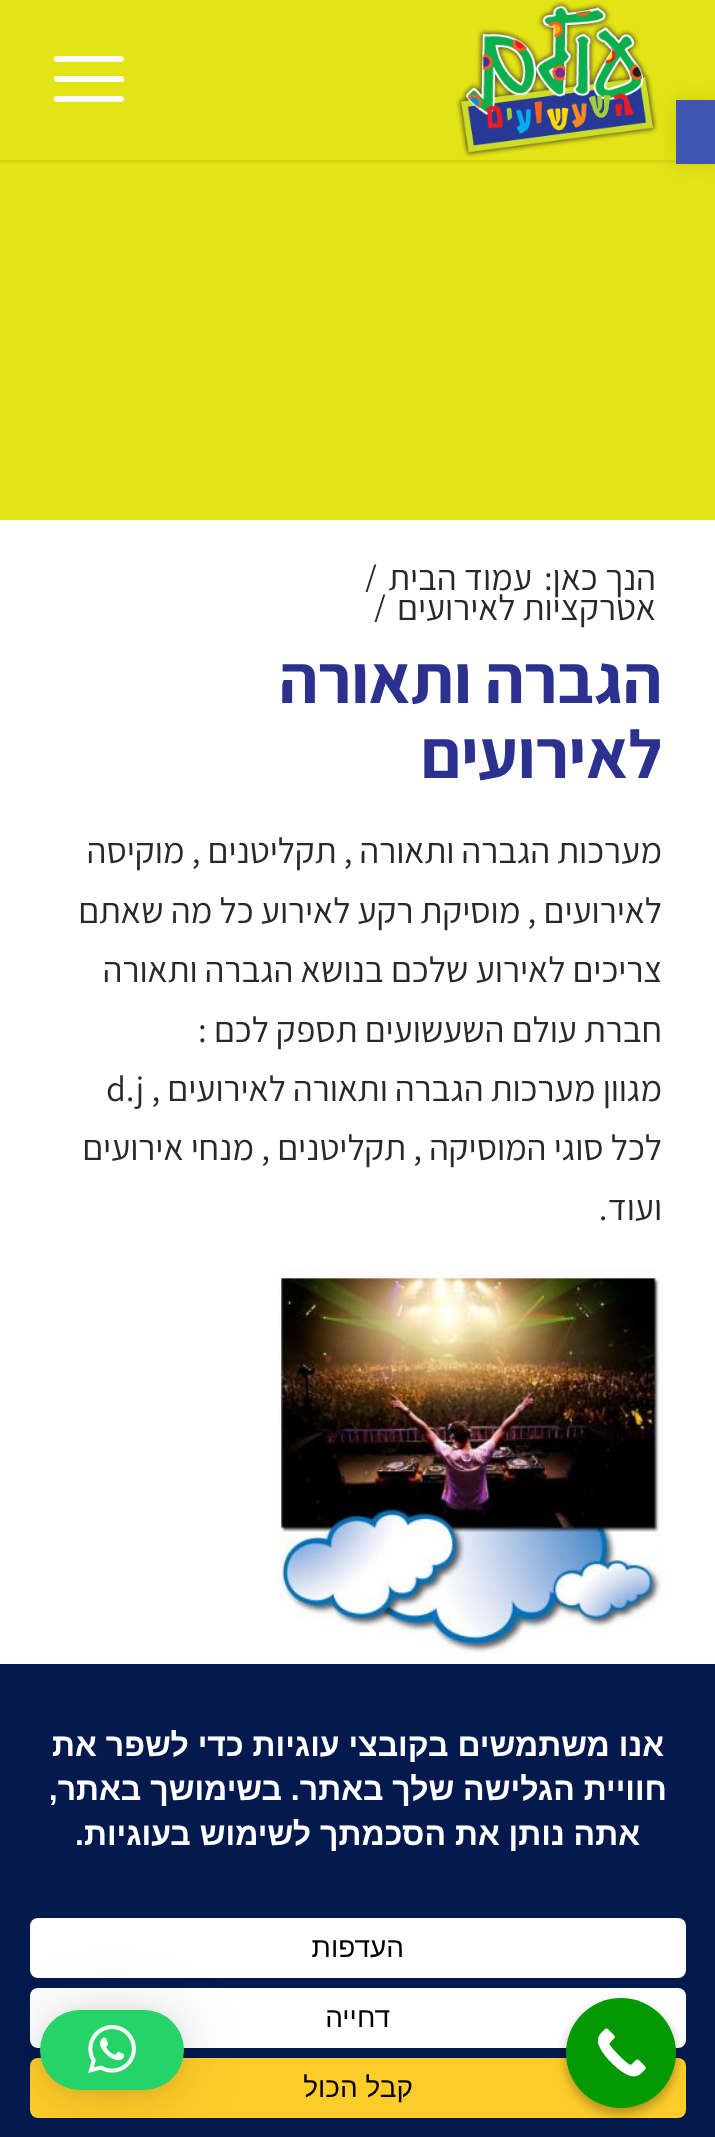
async function draw(canvas) {
  canvas.width = 715
  canvas.height = 2137
  const ctx = canvas.getContext('2d')
  ctx.miterLimit = 4
  ctx.fontKerning = 'normal'
  async function loadImage(src) {
    const img = new Image()
    img.src = src
    await img.decode()
    return img
  }

  ctx.fillStyle = '#e3e316'
  ctx.fillRect(0, 0, 715, 2137)
  ctx.fillStyle = '#0000001a'
  ctx.filter = 'blur(2px)'
  ctx.beginPath()
  ctx.rect(-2, -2, 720, 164)
  ctx.fill()
  ctx.filter = 'none'
  ctx.fillStyle = '#e3e316'
  ctx.fillRect(0, 0, 715, 160)
  ctx.drawImage(await loadImage('image0.png'), 456, 1, 202, 156)
  ctx.fillStyle = '#0000001a'
  ctx.filter = 'blur(10px)'
  ctx.beginPath()
  ctx.rect(676, 100, 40, 64)
  ctx.fill()
  ctx.filter = 'none'
  ctx.fillStyle = '#4054b2'
  ctx.fillRect(676, 100, 39, 64)
  ctx.fillStyle = '#fff'
  ctx.beginPath()
  ctx.roundRect(54, 76, 70, 6, 3)
  ctx.fill()
  ctx.beginPath()
  ctx.roundRect(54, 56, 70, 6, 3)
  ctx.fill()
  ctx.beginPath()
  ctx.roundRect(54, 96, 70, 6, 3)
  ctx.fill()
  ctx.fillRect(0, 520, 715, 1144)
  ctx.direction = 'rtl'
  ctx.font = '36px Assistant'
  ctx.fillStyle = '#292929'
  ctx.fillText('הנך כאן:', 656, 590)
  ctx.fillText('עמוד הבית', 532, 590)
  ctx.save()
  ctx.beginPath()
  ctx.rect(356, 562, 26, 30)
  ctx.clip()
  ctx.direction = 'ltr'
  ctx.fillText('/', 364, 590)
  ctx.restore()
  ctx.fillText('אטרקציות לאירועים', 656, 620)
  ctx.save()
  ctx.beginPath()
  ctx.rect(366, 592, 26, 30)
  ctx.clip()
  ctx.direction = 'ltr'
  ctx.fillText('/', 373, 620)
  ctx.restore()
  ctx.font = 'bold 68px Assistant'
  ctx.fillStyle = '#2c318f'
  ctx.fillText('הגברה ותאורה', 662, 703)
  ctx.fillText('לאירועים', 662, 778)
  ctx.font = '36px Assistant'
  ctx.fillStyle = '#292929'
  ctx.fillText('מערכות הגברה ותאורה , תקליטנים , מוקיסה', 662, 863)
  ctx.fillText('לאירועים , מוסיקת רקע לאירוע כל מה שאתם', 662, 923)
  ctx.fillText('צריכים לאירוע שלכם בנושא הגברה ותאורה', 662, 982)
  ctx.fillText('חברת עולם השעשועים תספק לכם :', 662, 1042)
  ctx.fillText('מגוון מערכות הגברה ותאורה לאירועים ,', 662, 1101)
  ctx.direction = 'ltr'
  ctx.fillText('d.j', 106, 1101)
  ctx.direction = 'rtl'
  ctx.fillText('לכל סוגי המוסיקה , תקליטנים , מנחי אירועים', 662, 1160)
  ctx.fillText('ועוד.', 662, 1220)
  ctx.drawImage(await loadImage('image1.png'), 276, 1268, 386, 386)
  ctx.fillStyle = '#04194e'
  ctx.fillRect(0, 1664, 715, 473)
  ctx.font = 'bold 32px Liberation Sans'
  ctx.fillStyle = '#fff'
  ctx.fillText('אנו משתמשים בקובצי עוגיות כדי לשפר את', 664, 1756)
  ctx.fillText('חוויית הגלישה שלך באתר. בשימושך באתר,', 667, 1800)
  ctx.fillText('אתה נותן את הסכמתך לשימוש בעוגיות.', 640, 1845)
  ctx.beginPath()
  ctx.roundRect(30, 1918, 656, 60, 8)
  ctx.fill()
  ctx.font = '28px Liberation Sans'
  ctx.fillStyle = '#000'
  ctx.fillText('העדפות', 404, 1957)
  ctx.fillStyle = '#fff'
  ctx.beginPath()
  ctx.roundRect(30, 1988, 656, 60, 8)
  ctx.fill()
  ctx.fillStyle = '#000'
  ctx.fillText('דחייה', 390, 2027)
  ctx.fillStyle = '#ffcd2a'
  ctx.beginPath()
  ctx.roundRect(30, 2058, 656, 60, 8)
  ctx.fill()
  ctx.fillStyle = '#000'
  ctx.fillText('קבל הכול', 413, 2097)
  ctx.fillStyle = '#0000004d'
  ctx.filter = 'blur(6px)'
  ctx.beginPath()
  ctx.roundRect(566, 2004, 110, 110, 55)
  ctx.fill()
  ctx.filter = 'none'
  ctx.fillStyle = '#090'
  ctx.beginPath()
  ctx.arc(621, 2053, 55, 0, 2 * Math.PI)
  ctx.fill()
  ctx.drawImage(await loadImage('image2.png'), 597, 2028, 49, 49)
  ctx.fillStyle = '#00000029'
  ctx.filter = 'blur(32px)'
  ctx.beginPath()
  ctx.roundRect(40, 2014, 144, 80, 40)
  ctx.fill()
  ctx.filter = 'none'
  ctx.fillStyle = '#0000000f'
  ctx.filter = 'blur(6px)'
  ctx.beginPath()
  ctx.roundRect(40, 2012, 144, 80, 40)
  ctx.fill()
  ctx.filter = 'none'
  ctx.fillStyle = '#25d366'
  ctx.beginPath()
  ctx.roundRect(40, 2010, 144, 80, 40)
  ctx.fill()
  ctx.drawImage(await loadImage('image3.png'), 88, 2025, 48, 48)
}

draw(document.querySelector('canvas'))
